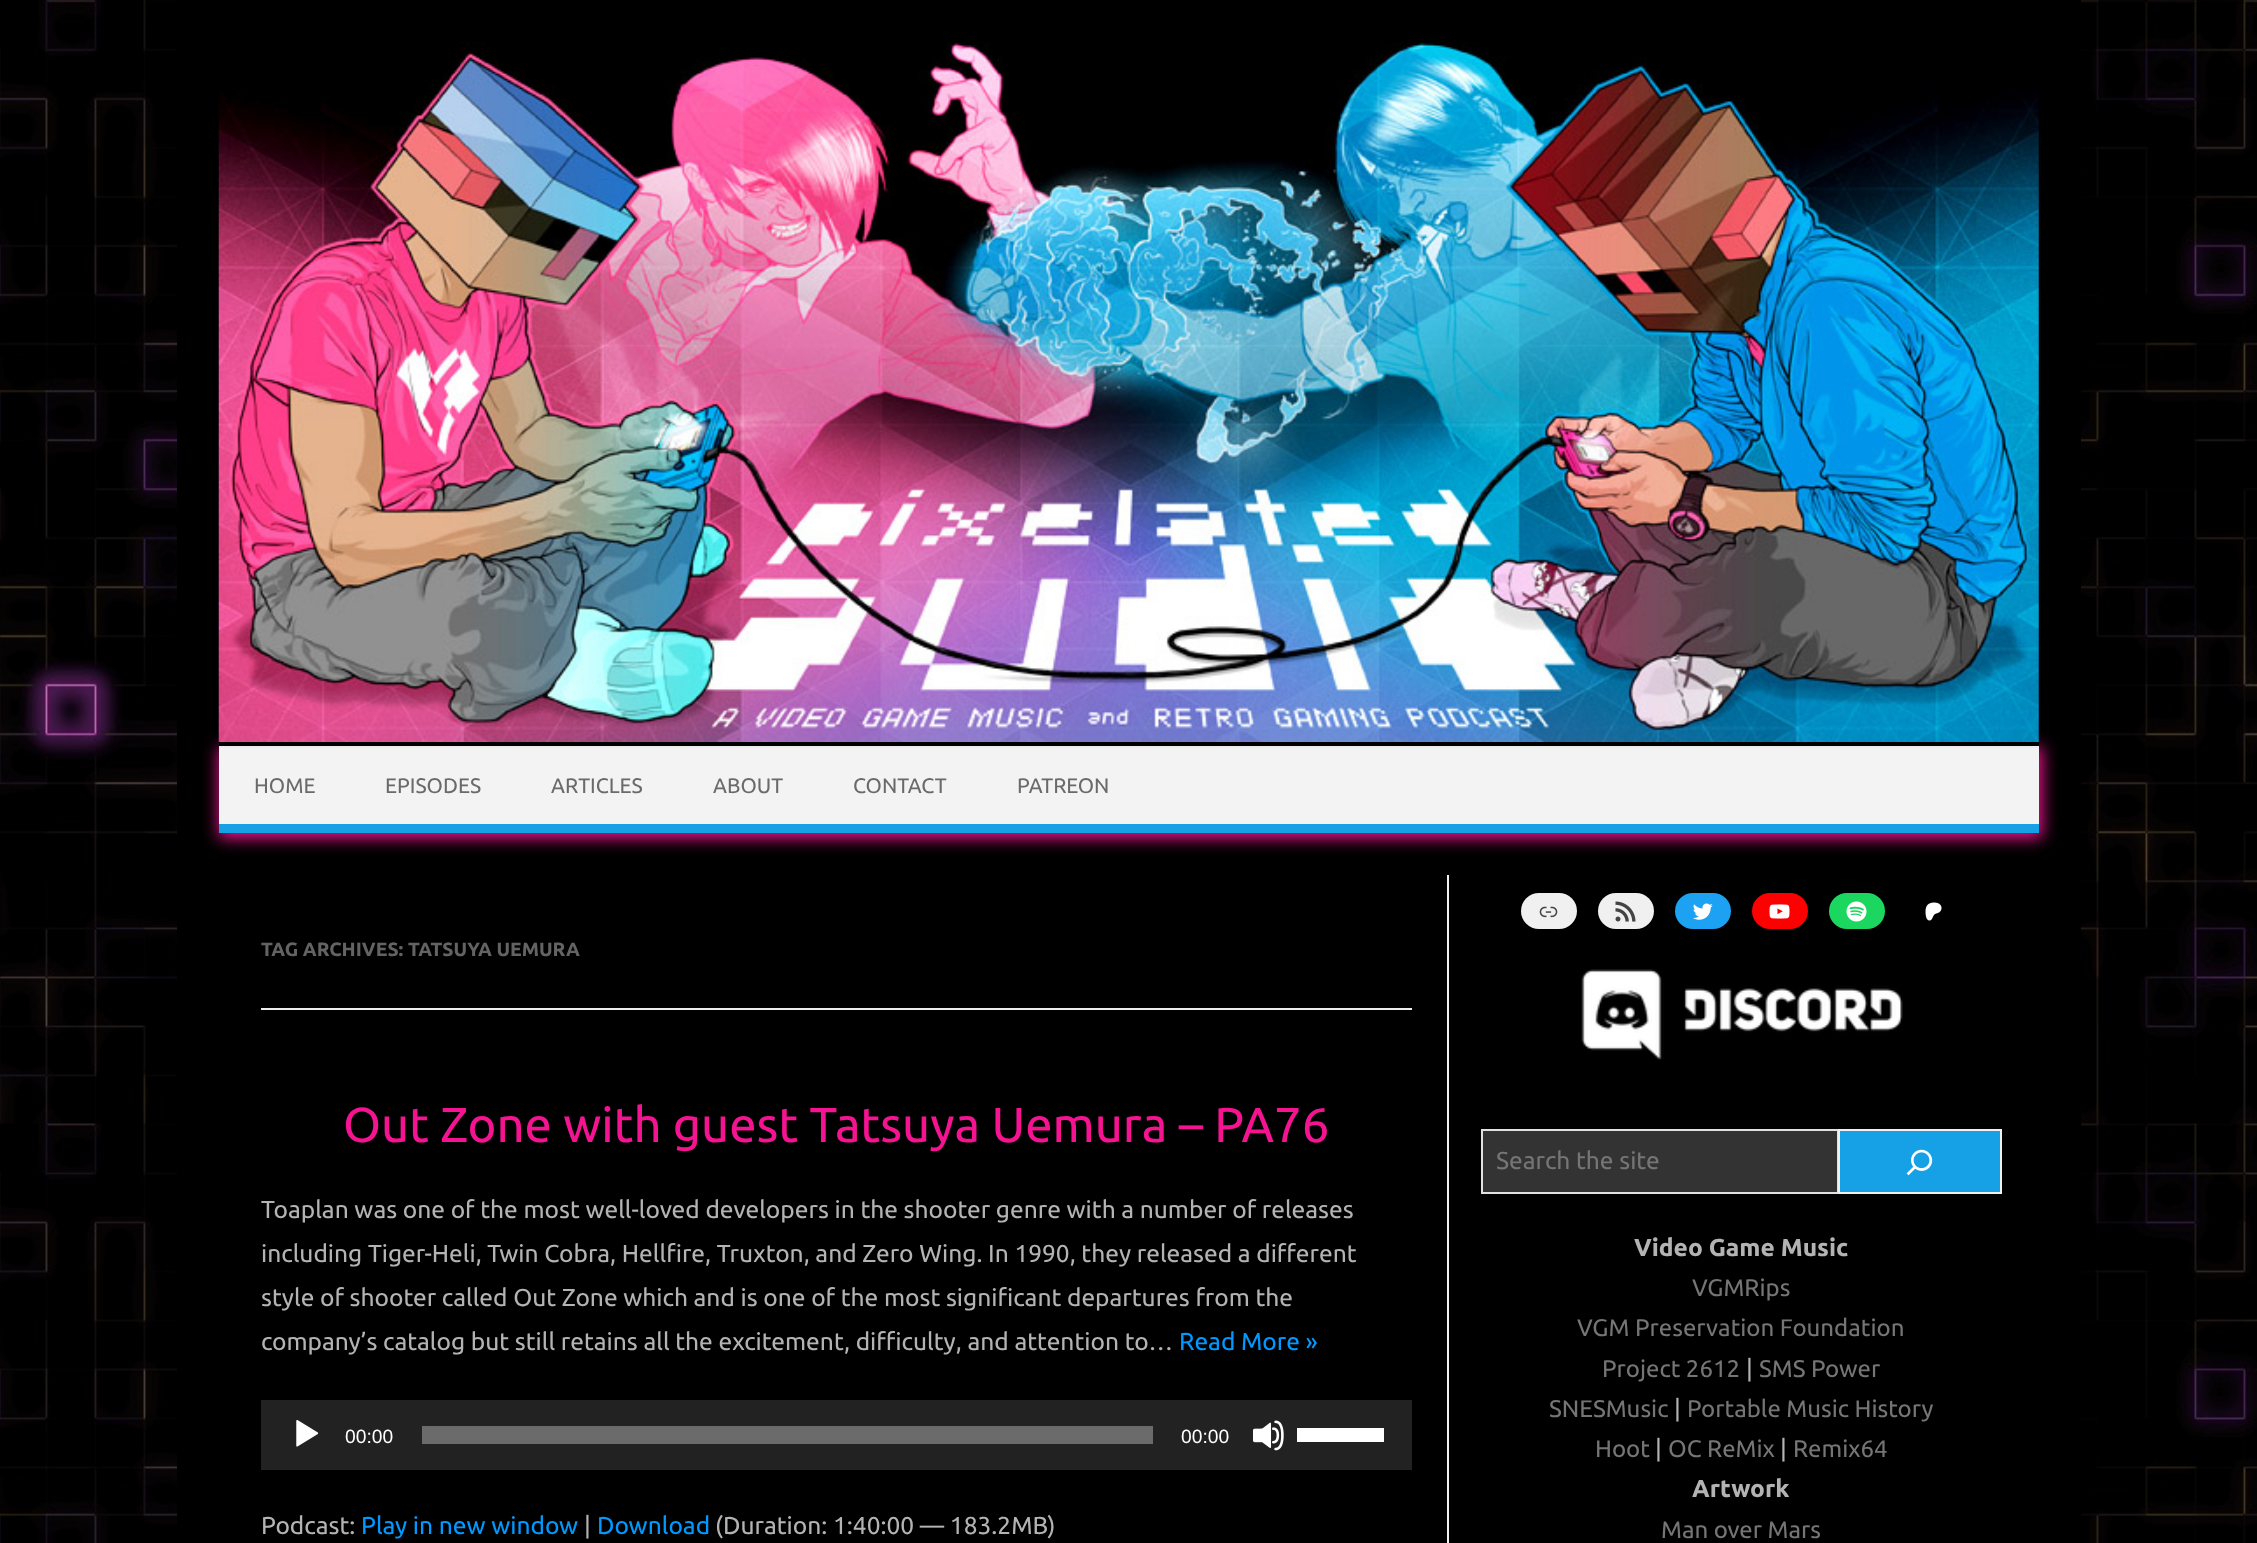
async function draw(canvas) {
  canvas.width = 2257
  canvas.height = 1543
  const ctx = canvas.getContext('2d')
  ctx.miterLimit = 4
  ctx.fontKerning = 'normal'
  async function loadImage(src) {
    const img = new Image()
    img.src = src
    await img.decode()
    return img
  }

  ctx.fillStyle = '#fff'
  ctx.fillRect(0, 0, 2257, 1543)
  ctx.drawImage(await loadImage('image0.png'), 0, 0, 2257, 1543)
  ctx.fillStyle = '#000'
  ctx.fillRect(177, 0, 1904, 1543)
  ctx.fillStyle = '#f51392'
  ctx.filter = 'blur(8px)'
  ctx.beginPath()
  ctx.rect(219, 747, 1823, 91)
  ctx.fill()
  ctx.filter = 'none'
  ctx.fillStyle = '#000'
  ctx.fillRect(219, 729, 1820, 17)
  ctx.drawImage(await loadImage('image1.png'), 218, 42, 1821, 700)
  ctx.fillStyle = '#f3f3f3'
  ctx.fillRect(219, 748, 1820, 76)
  ctx.fillStyle = '#ededed'
  ctx.fillRect(219, 746, 1820, 2)
  ctx.fillStyle = '#16a1e7'
  ctx.fillRect(219, 824, 1820, 9)
  ctx.font = '21px Ubuntu'
  ctx.fillStyle = '#6a6a6a'
  ctx.fillText('HOME', 254, 793)
  ctx.fillText('EPISODES', 385, 793)
  ctx.fillText('ARTICLES', 551, 793)
  ctx.fillText('ABOUT', 713, 793)
  ctx.fillText('CONTACT', 853, 793)
  ctx.fillText('PATREON', 1017, 793)
  ctx.fillStyle = '#f1f1f1'
  ctx.fillRect(1447, 875, 2, 668)
  ctx.fillStyle = '#ededed'
  ctx.fillRect(261, 1008, 1151, 2)
  ctx.font = 'bold 19.25px Ubuntu'
  ctx.fillStyle = '#636363'
  ctx.fillText('TAG ARCHIVES: TATSUYA UEMURA', 261, 956)
  ctx.font = '49px Ubuntu'
  ctx.fillStyle = '#f51392'
  ctx.fillText('Out Zone with guest Tatsuya Uemura – PA76', 343, 1142)
  ctx.font = '24.5px Ubuntu'
  ctx.fillStyle = '#b3b3b3'
  ctx.fillText('Toaplan was one of the most well-loved developers in the shooter genre with a number of releases', 261, 1218)
  ctx.fillText('including Tiger-Heli, Twin Cobra, Hellfire, Truxton, and Zero Wing. In 1990, they released a different', 261, 1262)
  ctx.fillText('style of shooter called Out Zone which and is one of the most significant departures from the', 261, 1306)
  ctx.fillText('company’s catalog but still retains all the excitement, difficulty, and attention to…', 261, 1350)
  ctx.fillStyle = '#09f'
  ctx.fillText('Read More »', 1179, 1350)
  ctx.fillStyle = '#222'
  ctx.fillRect(261, 1400, 1151, 70)
  ctx.drawImage(await loadImage('image2.png'), 296, 1420, 23, 27)
  ctx.font = '19.25px Liberation Sans'
  ctx.fillStyle = '#fff'
  ctx.fillText('00:00', 345, 1443)
  ctx.fillStyle = '#6b6b6b'
  ctx.fillRect(422, 1426, 731, 18)
  ctx.fillStyle = '#fff'
  ctx.fillText('00:00', 1181, 1443)
  ctx.drawImage(await loadImage('image3.png'), 1253, 1420, 31, 31)
  ctx.fillRect(1297, 1428, 87, 14)
  ctx.font = '24.5px Ubuntu'
  ctx.fillStyle = '#b3b3b3'
  ctx.fillText('Podcast:', 261, 1534)
  ctx.fillStyle = '#09f'
  ctx.fillText('Play in new window', 361, 1534)
  ctx.fillStyle = '#b3b3b3'
  ctx.fillText('|', 584, 1534)
  ctx.fillStyle = '#09f'
  ctx.fillText('Download', 597, 1534)
  ctx.fillStyle = '#b3b3b3'
  ctx.fillText('(Duration: 1:40:00 — 183.2MB)', 715, 1534)
  ctx.fillStyle = '#f0f0f0'
  ctx.beginPath()
  ctx.roundRect(1521, 893, 56, 36, 18)
  ctx.fill()
  ctx.drawImage(await loadImage('image4.png'), 1539, 906, 19, 12)
  ctx.beginPath()
  ctx.roundRect(1598, 893, 56, 36, 18)
  ctx.fill()
  ctx.drawImage(await loadImage('image5.png'), 1615, 901, 21, 21)
  ctx.fillStyle = '#1da1f2'
  ctx.beginPath()
  ctx.roundRect(1675, 893, 56, 36, 18)
  ctx.fill()
  ctx.drawImage(await loadImage('image6.png'), 1693, 903, 20, 17)
  ctx.fillStyle = '#f00'
  ctx.beginPath()
  ctx.roundRect(1752, 893, 56, 36, 18)
  ctx.fill()
  ctx.drawImage(await loadImage('image7.png'), 1769, 904, 21, 15)
  ctx.fillStyle = '#1bd760'
  ctx.beginPath()
  ctx.roundRect(1829, 893, 56, 36, 18)
  ctx.fill()
  ctx.drawImage(await loadImage('image8.png'), 1846, 901, 21, 21)
  ctx.drawImage(await loadImage('image9.png'), 1925, 902, 17, 19)
  ctx.drawImage(await loadImage('image10.png'), 1581, 969, 322, 91)
  ctx.fillStyle = '#333'
  ctx.beginPath()
  ctx.rect(1482, 1130, 356, 63)
  ctx.fill()
  ctx.strokeStyle = '#e1e1e1'
  ctx.lineWidth = 2
  ctx.stroke()
  ctx.fillStyle = '#757575'
  ctx.fillText('Search the site', 1496, 1169)
  ctx.fillStyle = '#16a1e7'
  ctx.beginPath()
  ctx.rect(1839, 1130, 162, 63)
  ctx.fill()
  ctx.strokeStyle = '#f1f1f1'
  ctx.stroke()
  ctx.drawImage(await loadImage('image11.png'), 1906, 1149, 27, 27)
  ctx.font = 'bold 24.5px Ubuntu'
  ctx.fillStyle = '#b3b3b3'
  ctx.fillText('Video Game Music', 1634, 1256)
  ctx.font = '24px Ubuntu'
  ctx.fillStyle = '#757575'
  ctx.fillText('VGMRips', 1692, 1296)
  ctx.fillText('VGM Preservation Foundation', 1577, 1336)
  ctx.fillText('Project 2612', 1602, 1377)
  ctx.font = '24.5px Ubuntu'
  ctx.fillStyle = '#b3b3b3'
  ctx.fillText('|', 1746, 1377)
  ctx.font = '24px Ubuntu'
  ctx.fillStyle = '#757575'
  ctx.fillText('SMS Power', 1759, 1377)
  ctx.fillText('SNESMusic', 1549, 1417)
  ctx.font = '24.5px Ubuntu'
  ctx.fillStyle = '#b3b3b3'
  ctx.fillText('|', 1674, 1417)
  ctx.font = '24px Ubuntu'
  ctx.fillStyle = '#757575'
  ctx.fillText('Portable Music History', 1687, 1417)
  ctx.fillText('Hoot', 1595, 1457)
  ctx.font = '24.5px Ubuntu'
  ctx.fillStyle = '#b3b3b3'
  ctx.fillText('|', 1655, 1457)
  ctx.font = '24px Ubuntu'
  ctx.fillStyle = '#757575'
  ctx.fillText('OC ReMix', 1668, 1457)
  ctx.font = '24.5px Ubuntu'
  ctx.fillStyle = '#b3b3b3'
  ctx.fillText('|', 1780, 1457)
  ctx.font = '24px Ubuntu'
  ctx.fillStyle = '#757575'
  ctx.fillText('Remix64', 1793, 1457)
  ctx.font = 'bold 24.5px Ubuntu'
  ctx.fillStyle = '#b3b3b3'
  ctx.fillText('Artwork', 1692, 1497)
  ctx.font = '24px Ubuntu'
  ctx.fillStyle = '#757575'
  ctx.fillText('Man over Mars', 1661, 1538)
}

draw(document.querySelector('canvas'))
